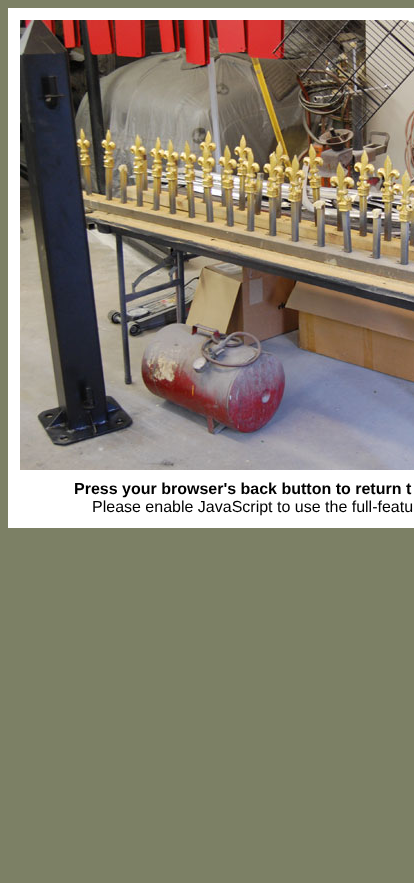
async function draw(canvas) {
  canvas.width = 414
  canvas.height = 883
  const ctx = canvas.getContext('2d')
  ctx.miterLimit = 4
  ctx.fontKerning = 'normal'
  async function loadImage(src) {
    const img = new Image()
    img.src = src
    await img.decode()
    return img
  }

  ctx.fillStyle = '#7c8065'
  ctx.fillRect(0, 0, 414, 883)
  ctx.fillStyle = '#fff'
  ctx.fillRect(8, 8, 406, 520)
  ctx.drawImage(await loadImage('image0.png'), 20, 20, 394, 450)
  ctx.font = 'bold 16px Liberation Sans'
  ctx.fillStyle = '#000'
  ctx.fillText('Press your browser\'s back button to return t', 74, 494)
  ctx.font = '16px Liberation Sans'
  ctx.fillText('Please enable JavaScript to use the full-featu', 92, 512)
}

draw(document.querySelector('canvas'))
